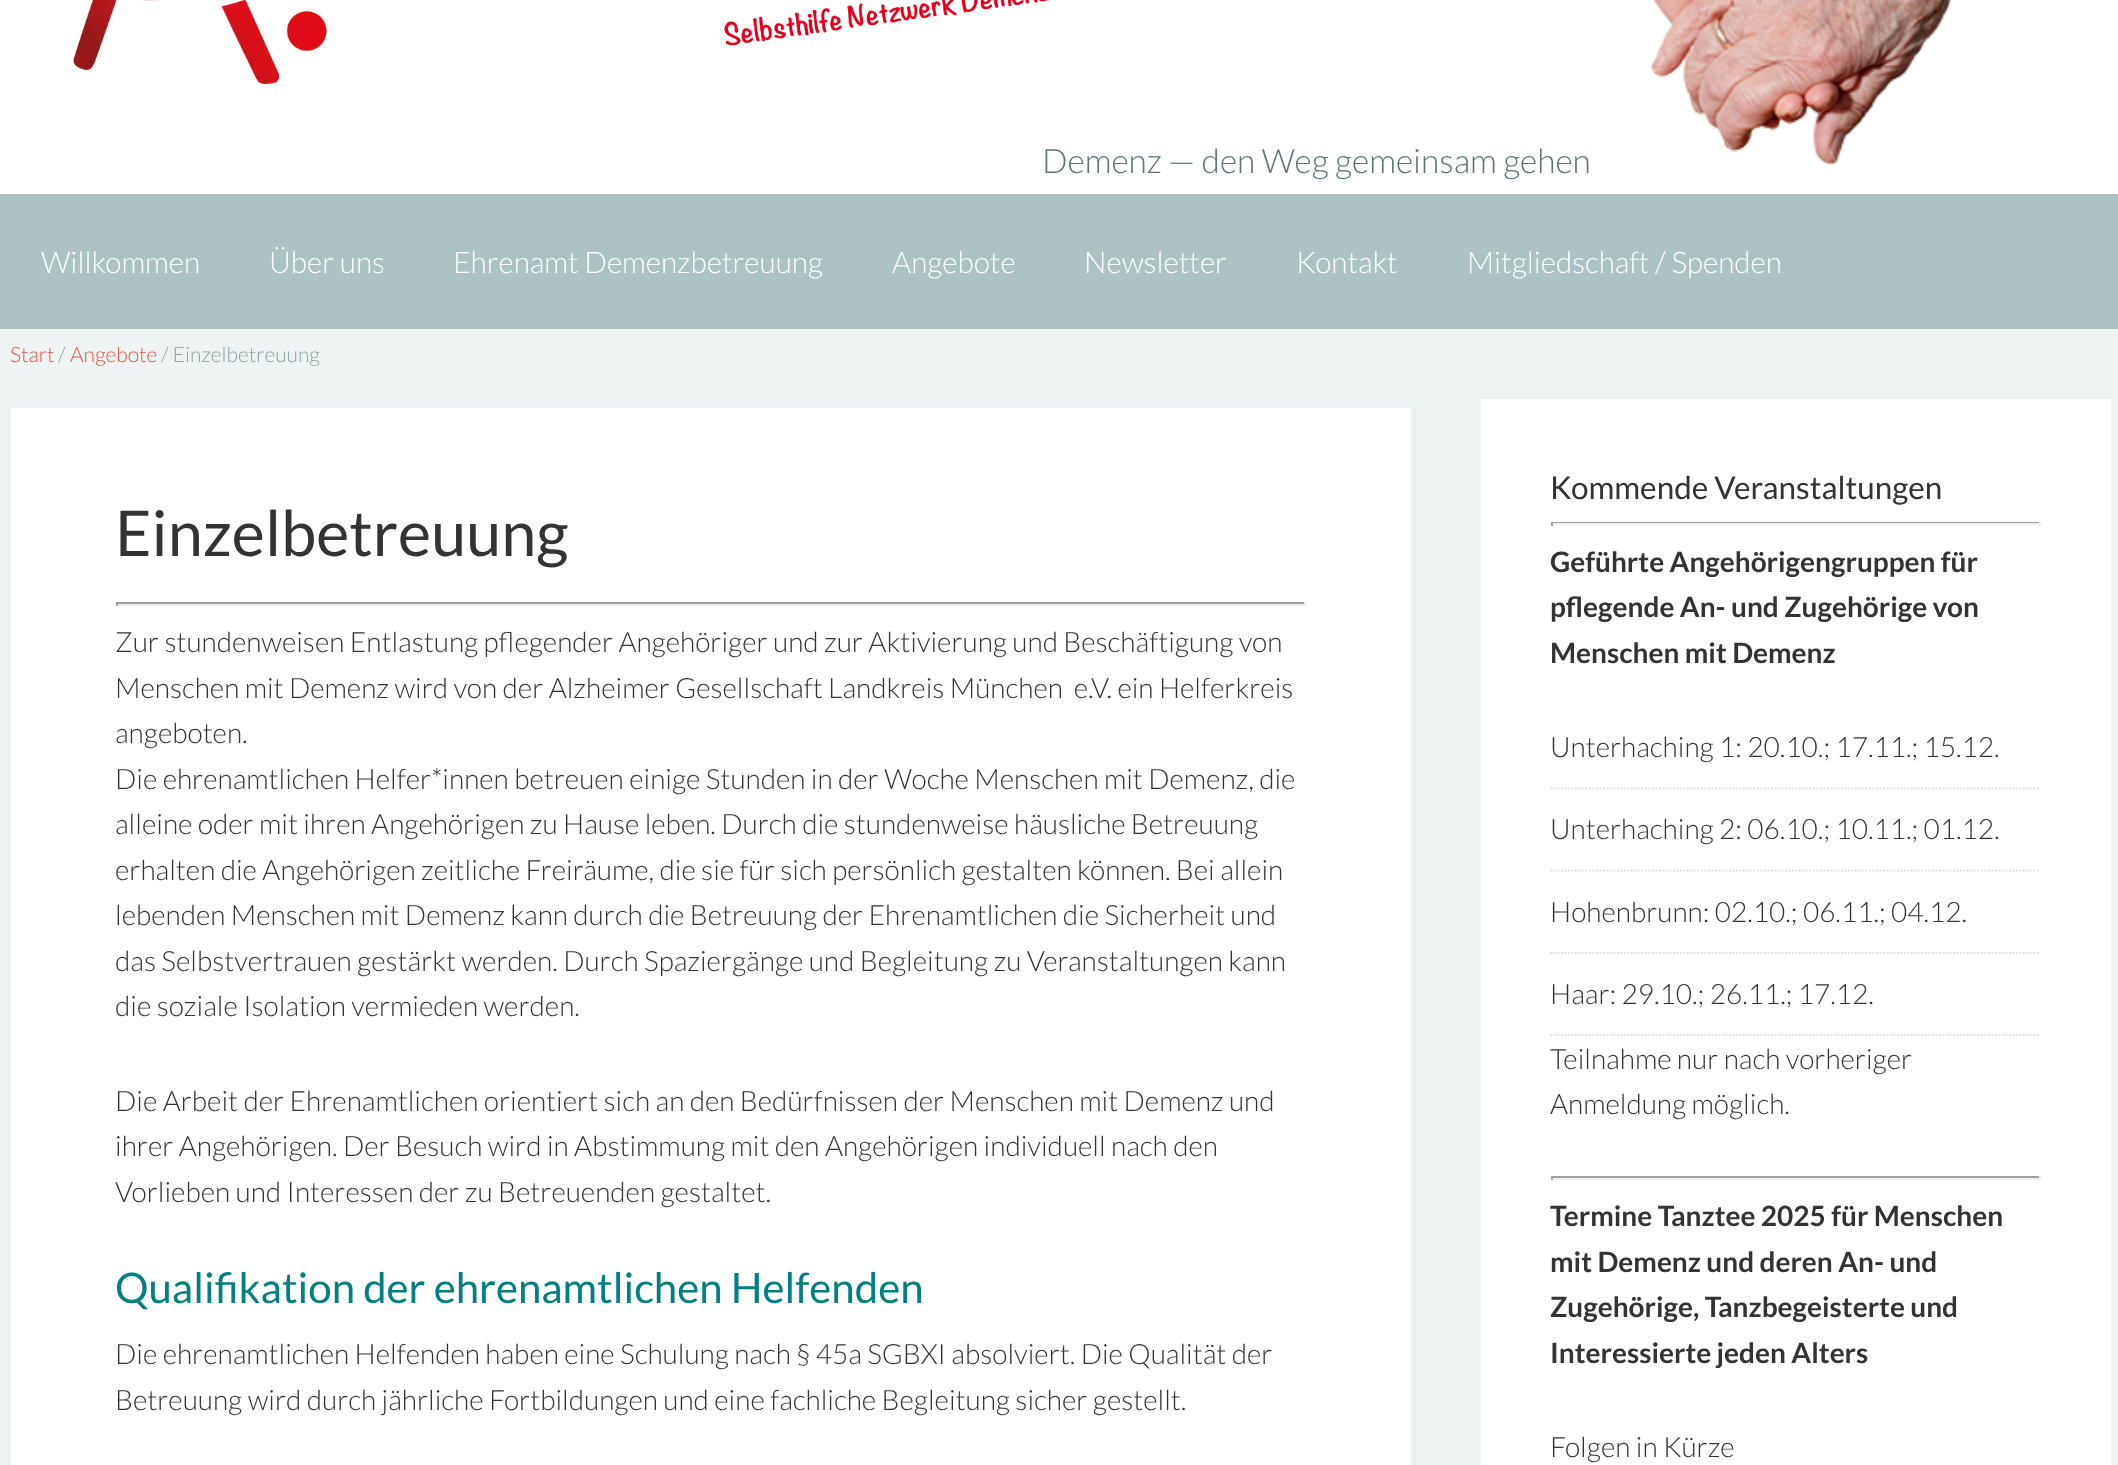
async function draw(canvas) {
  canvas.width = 2118
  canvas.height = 1465
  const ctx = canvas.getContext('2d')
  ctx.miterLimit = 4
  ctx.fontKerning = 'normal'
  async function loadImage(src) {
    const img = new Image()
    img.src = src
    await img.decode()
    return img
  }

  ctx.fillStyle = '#edf3f3'
  ctx.fillRect(0, 0, 2118, 1465)
  ctx.fillStyle = '#fff'
  ctx.fillRect(0, 0, 2118, 194)
  ctx.drawImage(await loadImage('image0.png'), 1650, 0, 302, 166)
  ctx.drawImage(await loadImage('image1.png'), 73, 0, 976, 84)
  ctx.font = '300 33.6px Lato'
  ctx.fillStyle = '#5b7475'
  ctx.fillText('Demenz — den Weg gemeinsam gehen', 1042, 173)
  ctx.fillStyle = '#acc2c3'
  ctx.fillRect(0, 194, 2118, 135)
  ctx.font = '300 29.75px Lato'
  ctx.fillStyle = '#fff'
  ctx.fillText('Willkommen', 41, 273)
  ctx.fillText('Über uns', 269, 273)
  ctx.fillText('Ehrenamt Demenzbetreuung', 453, 273)
  ctx.fillText('Angebote', 892, 273)
  ctx.fillText('Newsletter', 1084, 273)
  ctx.fillText('Kontakt', 1296, 273)
  ctx.fillText('Mitgliedschaft / Spenden', 1467, 273)
  ctx.font = '300 21px Lato'
  ctx.fillStyle = '#e5554e'
  ctx.fillText('Start', 10, 362)
  ctx.fillStyle = '#90a3a3'
  ctx.fillText('/', 58, 362)
  ctx.fillStyle = '#e5554e'
  ctx.fillText('Angebote', 70, 362)
  ctx.fillStyle = '#90a3a3'
  ctx.fillText('/ Einzelbetreuung', 161, 362)
  ctx.fillStyle = '#fff'
  ctx.fillRect(11, 408, 1400, 1057)
  ctx.font = '63px Lato'
  ctx.fillStyle = '#333'
  ctx.fillText('Einzelbetreuung', 115, 556)
  ctx.fillStyle = '#9f9f9f'
  ctx.fillRect(116, 602, 1190, 2)
  ctx.fillStyle = '#eee'
  ctx.fillRect(1304, 602, 2, 4)
  ctx.fillRect(116, 604, 1190, 2)
  ctx.fillStyle = '#9f9f9f'
  ctx.fillRect(116, 602, 2, 4)
  ctx.font = '300 28px Lato'
  ctx.fillStyle = '#333'
  ctx.fillText('Zur stundenweisen Entlastung pflegender Angehöriger und zur Aktivierung und Beschäftigung von', 115, 652)
  ctx.fillText('Menschen mit Demenz wird von der Alzheimer Gesellschaft Landkreis München  e.V. ein Helferkreis', 115, 698)
  ctx.fillText('angeboten.', 115, 743)
  ctx.fillText('Die ehrenamtlichen Helfer*innen betreuen einige Stunden in der Woche Menschen mit Demenz, die', 115, 789)
  ctx.fillText('alleine oder mit ihren Angehörigen zu Hause leben. Durch die stundenweise häusliche Betreuung', 115, 834)
  ctx.fillText('erhalten die Angehörigen zeitliche Freiräume, die sie für sich persönlich gestalten können. Bei allein', 115, 880)
  ctx.fillText('lebenden Menschen mit Demenz kann durch die Betreuung der Ehrenamtlichen die Sicherheit und', 115, 925)
  ctx.fillText('das Selbstvertrauen gestärkt werden. Durch Spaziergänge und Begleitung zu Veranstaltungen kann', 115, 971)
  ctx.fillText('die soziale Isolation vermieden werden.', 115, 1016)
  ctx.fillText('Die Arbeit der Ehrenamtlichen orientiert sich an den Bedürfnissen der Menschen mit Demenz und', 115, 1111)
  ctx.fillText('ihrer Angehörigen. Der Besuch wird in Abstimmung mit den Angehörigen individuell nach den', 115, 1156)
  ctx.fillText('Vorlieben und Interessen der zu Betreuenden gestaltet.', 115, 1202)
  ctx.font = '42px Lato'
  ctx.fillStyle = '#008080'
  ctx.fillText('Qualifikation der ehrenamtlichen Helfenden', 115, 1303)
  ctx.font = '300 28px Lato'
  ctx.fillStyle = '#333'
  ctx.fillText('Die ehrenamtlichen Helfenden haben eine Schulung nach § 45a SGBXI absolviert. Die Qualität der', 115, 1364)
  ctx.fillText('Betreuung wird durch jährliche Fortbildungen und eine fachliche Begleitung sicher gestellt.', 115, 1410)
  ctx.fillStyle = '#fff'
  ctx.fillRect(1481, 399, 630, 1066)
  ctx.font = '31.5px Lato'
  ctx.fillStyle = '#333'
  ctx.fillText('Kommende Veranstaltungen', 1550, 499)
  ctx.fillStyle = '#9f9f9f'
  ctx.fillRect(1551, 522, 490, 1)
  ctx.fillStyle = '#eee'
  ctx.fillRect(2039, 522, 2, 4)
  ctx.fillRect(1551, 523, 490, 2)
  ctx.fillStyle = '#9f9f9f'
  ctx.fillRect(1551, 522, 2, 4)
  ctx.font = 'bold 28px Lato'
  ctx.fillStyle = '#333'
  ctx.fillText('Geführte Angehörigengruppen für', 1550, 572)
  ctx.fillText('pflegende An- und Zugehörige von', 1550, 617)
  ctx.fillText('Menschen mit Demenz', 1550, 663)
  ctx.beginPath()
  ctx.moveTo(1550.5, 788.5)
  ctx.lineTo(2040.5, 788.5)
  ctx.strokeStyle = '#ddd'
  ctx.lineWidth = 1.8
  ctx.setLineDash([1.75, 1.75])
  ctx.stroke()
  ctx.font = '300 28px Lato'
  ctx.fillText('Unterhaching 1: 20.10.; 17.11.; 15.12.', 1550, 757)
  ctx.beginPath()
  ctx.moveTo(1550.5, 870.5)
  ctx.lineTo(2040.5, 870.5)
  ctx.stroke()
  ctx.fillText('Unterhaching 2: 06.10.; 10.11.; 01.12.', 1550, 839)
  ctx.beginPath()
  ctx.moveTo(1550.5, 953)
  ctx.lineTo(2040.5, 953)
  ctx.stroke()
  ctx.fillText('Hohenbrunn: 02.10.; 06.11.; 04.12.', 1550, 922)
  ctx.beginPath()
  ctx.moveTo(1550.5, 1035)
  ctx.lineTo(2040.5, 1035)
  ctx.stroke()
  ctx.fillText('Haar: 29.10.; 26.11.; 17.12.', 1550, 1004)
  ctx.fillText('Teilnahme nur nach vorheriger', 1550, 1069)
  ctx.fillText('Anmeldung möglich.', 1550, 1114)
  ctx.fillStyle = '#9f9f9f'
  ctx.fillRect(1551, 1176, 490, 2)
  ctx.fillStyle = '#eee'
  ctx.fillRect(2039, 1176, 2, 4)
  ctx.fillRect(1551, 1178, 490, 2)
  ctx.fillStyle = '#9f9f9f'
  ctx.fillRect(1551, 1176, 2, 4)
  ctx.font = 'bold 28px Lato'
  ctx.fillStyle = '#333'
  ctx.fillText('Termine Tanztee 2025 für Menschen', 1550, 1226)
  ctx.fillText('mit Demenz und deren An- und', 1550, 1272)
  ctx.fillText('Zugehörige, Tanzbegeisterte und', 1550, 1317)
  ctx.fillText('Interessierte jeden Alters', 1550, 1363)
  ctx.font = '300 28px Lato'
  ctx.fillText('Folgen in Kürze', 1550, 1457)
}

draw(document.querySelector('canvas'))
